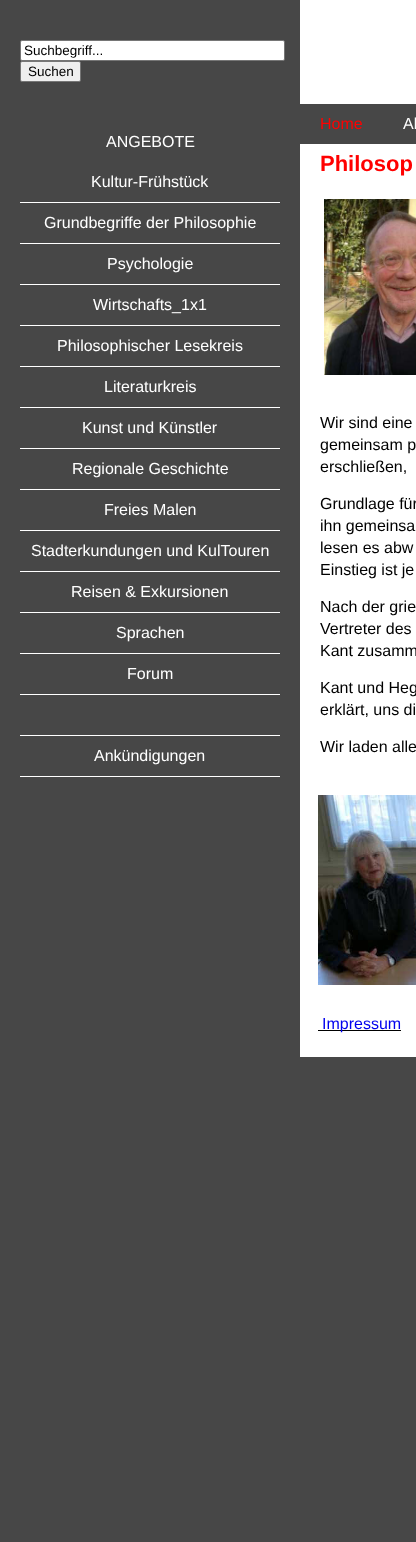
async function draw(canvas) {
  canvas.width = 416
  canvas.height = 1542
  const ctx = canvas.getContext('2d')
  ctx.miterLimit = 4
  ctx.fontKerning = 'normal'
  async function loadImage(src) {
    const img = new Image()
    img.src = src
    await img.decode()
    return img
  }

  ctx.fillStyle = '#474747'
  ctx.fillRect(0, 0, 416, 1542)
  ctx.fillStyle = '#fff'
  ctx.beginPath()
  ctx.roundRect(20.5, 40.5, 264, 20, 1.5)
  ctx.fill()
  ctx.strokeStyle = '#767676'
  ctx.stroke()
  ctx.font = '13.5px Liberation Sans'
  ctx.fillStyle = '#000'
  ctx.fillText('Suchbegriff...', 24, 55)
  ctx.fillStyle = '#efefef'
  ctx.beginPath()
  ctx.roundRect(20.5, 61.5, 60, 20, 1.5)
  ctx.fill()
  ctx.stroke()
  ctx.fillStyle = '#000'
  ctx.fillText('Suchen', 28, 76)
  ctx.font = '16px Liberation Sans'
  ctx.fillStyle = '#fff'
  ctx.fillText('ANGEBOTE', 106, 147)
  ctx.fillRect(20, 202, 260, 1)
  ctx.fillText('Kultur-Frühstück', 91, 187)
  ctx.fillRect(20, 243, 260, 1)
  ctx.fillText('Grundbegriffe der Philosophie', 44, 228)
  ctx.fillRect(20, 284, 260, 1)
  ctx.fillText('Psychologie', 107, 269)
  ctx.fillRect(20, 325, 260, 1)
  ctx.fillText('Wirtschafts_1x1', 93, 310)
  ctx.fillRect(20, 366, 260, 1)
  ctx.fillText('Philosophischer Lesekreis', 57, 351)
  ctx.fillRect(20, 407, 260, 1)
  ctx.fillText('Literaturkreis', 104, 392)
  ctx.fillRect(20, 448, 260, 1)
  ctx.fillText('Kunst und Künstler', 82, 433)
  ctx.fillRect(20, 489, 260, 1)
  ctx.fillText('Regionale Geschichte', 72, 474)
  ctx.fillRect(20, 530, 260, 1)
  ctx.fillText('Freies Malen', 104, 515)
  ctx.fillRect(20, 571, 260, 1)
  ctx.fillText('Stadterkundungen und KulTouren', 31, 556)
  ctx.fillRect(20, 612, 260, 1)
  ctx.fillText('Reisen & Exkursionen', 71, 597)
  ctx.fillRect(20, 653, 260, 1)
  ctx.fillText('Sprachen', 116, 638)
  ctx.fillRect(20, 694, 260, 1)
  ctx.fillText('Forum', 127, 679)
  ctx.fillRect(20, 735, 260, 1)
  ctx.fillRect(20, 776, 260, 1)
  ctx.fillText('Ankündigungen', 94, 761)
  ctx.fillRect(300, 0, 116, 1057)
  ctx.fillStyle = '#474747'
  ctx.fillRect(300, 104, 116, 40)
  ctx.fillStyle = '#f00'
  ctx.fillText('Home', 320, 129)
  ctx.fillStyle = '#fff'
  ctx.fillText('Ak', 403, 129)
  ctx.font = 'bold 22px Liberation Sans'
  ctx.fillStyle = '#f00'
  ctx.fillText('Philosop', 320, 171)
  ctx.drawImage(await loadImage('image0.png'), 324, 199, 92, 176)
  ctx.font = '16px Liberation Sans'
  ctx.fillStyle = '#000'
  ctx.fillText('Wir sind eine', 320, 428)
  ctx.fillText('gemeinsam p', 320, 450)
  ctx.fillText('erschließen,', 320, 472)
  ctx.fillText('Grundlage für', 320, 509)
  ctx.fillText('ihn gemeinsa', 320, 531)
  ctx.fillText('lesen es abw', 320, 553)
  ctx.fillText('Einstieg ist je', 320, 575)
  ctx.fillText('Nach der grie', 320, 612)
  ctx.fillText('Vertreter des', 320, 634)
  ctx.fillText('Kant zusamm', 320, 656)
  ctx.fillText('Kant und Heg', 320, 693)
  ctx.fillText('erklärt, uns di', 320, 715)
  ctx.fillText('Wir laden alle', 320, 752)
  ctx.drawImage(await loadImage('image1.png'), 318, 795, 98, 190)
  ctx.fillRect(318, 1030, 83, 1)
  ctx.fillStyle = '#00e'
  ctx.fillText('Impressum', 322, 1029)
}

draw(document.querySelector('canvas'))
